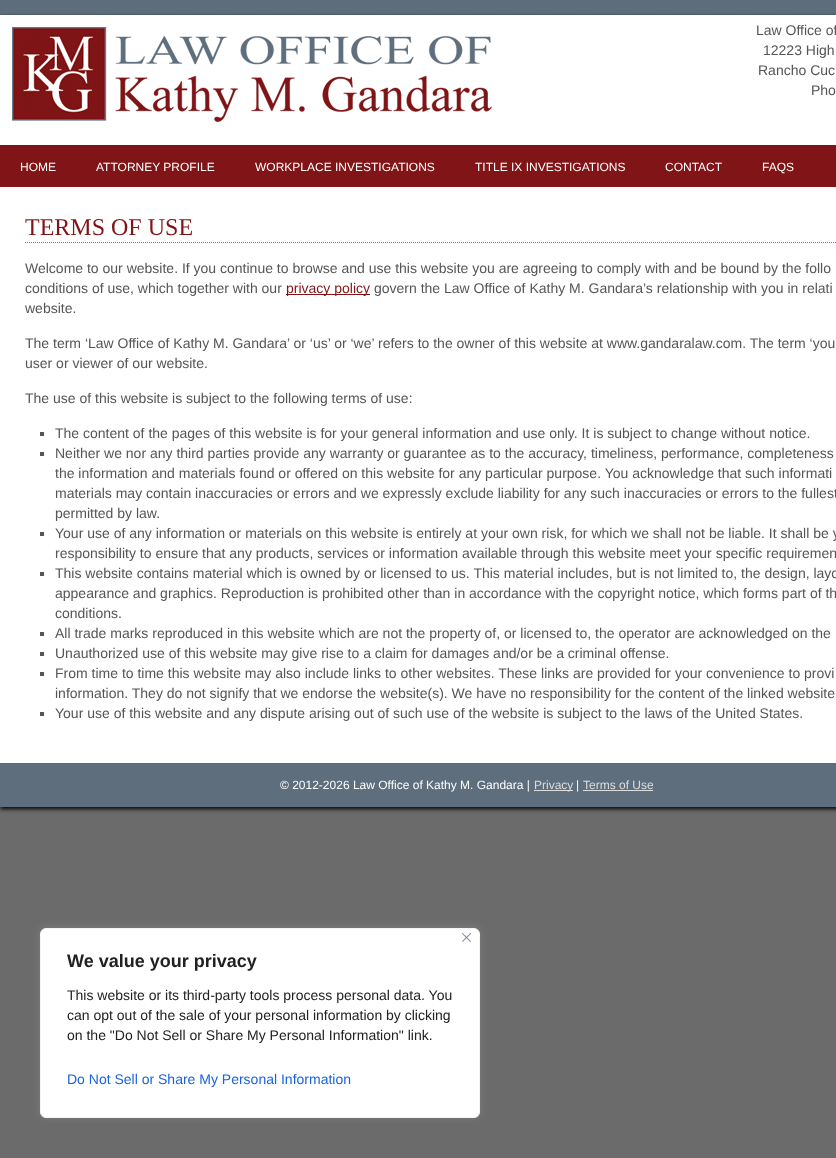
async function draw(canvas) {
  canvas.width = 836
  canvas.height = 1158
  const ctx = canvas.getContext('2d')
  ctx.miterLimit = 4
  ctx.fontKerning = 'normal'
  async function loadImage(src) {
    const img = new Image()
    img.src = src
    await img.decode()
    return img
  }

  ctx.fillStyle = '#6b6b6c'
  ctx.fillRect(0, 0, 836, 1158)
  ctx.drawImage(await loadImage('image0.png'), 0, 0, 836, 15)
  ctx.fillStyle = '#000'
  ctx.filter = 'blur(2px)'
  ctx.beginPath()
  ctx.rect(0, 17, 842, 792)
  ctx.fill()
  ctx.filter = 'none'
  ctx.fillStyle = '#fff'
  ctx.fillRect(0, 15, 836, 748)
  ctx.drawImage(await loadImage('image1.png'), 12, 27, 480, 95)
  ctx.font = '14px Liberation Sans'
  ctx.fillStyle = '#555'
  ctx.fillText('Law Office of', 756, 35)
  ctx.fillText('12223 High', 763, 55)
  ctx.fillText('Rancho Cuc', 758, 75)
  ctx.fillText('Pho', 811, 95)
  ctx.fillStyle = '#801416'
  ctx.fillRect(0, 146, 836, 41)
  ctx.fillStyle = '#333'
  ctx.fillRect(0, 145, 836, 1)
  ctx.font = '12px Liberation Sans'
  ctx.fillStyle = '#fff'
  ctx.fillText('HOME', 20, 171)
  ctx.fillText('ATTORNEY PROFILE', 96, 171)
  ctx.fillText('WORKPLACE INVESTIGATIONS', 255, 171)
  ctx.fillText('TITLE IX INVESTIGATIONS', 475, 171)
  ctx.fillText('CONTACT', 665, 171)
  ctx.fillText('FAQS', 762, 171)
  ctx.beginPath()
  ctx.moveTo(25, 242.5)
  ctx.lineTo(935, 242.5)
  ctx.strokeStyle = '#708090'
  ctx.setLineDash([1, 1])
  ctx.stroke()
  ctx.font = '24px Liberation Serif'
  ctx.fillStyle = '#801416'
  ctx.fillText('TERMS OF USE', 25, 235)
  ctx.font = '14px Liberation Sans'
  ctx.fillStyle = '#555'
  ctx.fillText('Welcome to our website. If you continue to browse and use this website you are agreeing to comply with and be bound by the follo', 25, 273)
  ctx.fillText('conditions of use, which together with our', 25, 293)
  ctx.fillStyle = '#801416'
  ctx.fillRect(286, 294, 84, 1)
  ctx.fillText('privacy policy', 286, 293)
  ctx.fillStyle = '#555'
  ctx.fillText('govern the Law Office of Kathy M. Gandara’s relationship with you in relati', 374, 293)
  ctx.fillText('website.', 25, 313)
  ctx.fillText('The term ‘Law Office of Kathy M. Gandara’ or ‘us’ or ‘we’ refers to the owner of this website at www.gandaralaw.com. The term ‘you', 25, 348)
  ctx.fillText('user or viewer of our website.', 25, 368)
  ctx.fillText('The use of this website is subject to the following terms of use:', 25, 403)
  ctx.fillRect(40, 432, 4, 4)
  ctx.fillText('The content of the pages of this website is for your general information and use only. It is subject to change without notice.', 55, 438)
  ctx.fillRect(40, 452, 4, 4)
  ctx.fillText('Neither we nor any third parties provide any warranty or guarantee as to the accuracy, timeliness, performance, completeness', 55, 458)
  ctx.fillText('the information and materials found or offered on this website for any particular purpose. You acknowledge that such informati', 55, 478)
  ctx.fillText('materials may contain inaccuracies or errors and we expressly exclude liability for any such inaccuracies or errors to the fullest', 55, 498)
  ctx.fillText('permitted by law.', 55, 518)
  ctx.fillRect(40, 532, 4, 4)
  ctx.fillText('Your use of any information or materials on this website is entirely at your own risk, for which we shall not be liable. It shall be y', 55, 538)
  ctx.fillText('responsibility to ensure that any products, services or information available through this website meet your specific requiremen', 55, 558)
  ctx.fillRect(40, 572, 4, 4)
  ctx.fillText('This website contains material which is owned by or licensed to us. This material includes, but is not limited to, the design, layo', 55, 578)
  ctx.fillText('appearance and graphics. Reproduction is prohibited other than in accordance with the copyright notice, which forms part of th', 55, 598)
  ctx.fillText('conditions.', 55, 618)
  ctx.fillRect(40, 632, 4, 4)
  ctx.fillText('All trade marks reproduced in this website which are not the property of, or licensed to, the operator are acknowledged on the', 55, 638)
  ctx.fillRect(40, 652, 4, 4)
  ctx.fillText('Unauthorized use of this website may give rise to a claim for damages and/or be a criminal offense.', 55, 658)
  ctx.fillRect(40, 672, 4, 4)
  ctx.fillText('From time to time this website may also include links to other websites. These links are provided for your convenience to provi', 55, 678)
  ctx.fillText('information. They do not signify that we endorse the website(s). We have no responsibility for the content of the linked website', 55, 698)
  ctx.fillRect(40, 712, 4, 4)
  ctx.fillText('Your use of this website and any dispute arising out of such use of the website is subject to the laws of the United States.', 55, 718)
  ctx.fillStyle = '#5e6e7d'
  ctx.fillRect(0, 763, 836, 44)
  ctx.font = '12px Liberation Sans'
  ctx.fillStyle = '#fff'
  ctx.fillText('© 2012-2026 Law Office of Kathy M. Gandara |', 280, 789)
  ctx.fillStyle = '#ddd'
  ctx.fillRect(534, 790, 39, 1)
  ctx.fillText('Privacy', 534, 789)
  ctx.fillStyle = '#fff'
  ctx.fillText('|', 576, 789)
  ctx.fillStyle = '#ddd'
  ctx.fillText('Terms of Use', 583, 789)
  ctx.fillRect(583, 790, 70, 1)
  ctx.fillStyle = '#acabab4d'
  ctx.filter = 'blur(5px)'
  ctx.beginPath()
  ctx.roundRect(40, 927, 440, 190, 6)
  ctx.fill()
  ctx.filter = 'none'
  ctx.fillStyle = '#fff'
  ctx.beginPath()
  ctx.roundRect(40.5, 928.5, 439, 189, 5.5)
  ctx.fill()
  ctx.strokeStyle = '#f4f4f4'
  ctx.setLineDash([])
  ctx.stroke()
  ctx.drawImage(await loadImage('image2.png'), 462, 933, 9, 9)
  ctx.font = 'bold 18px Liberation Sans'
  ctx.fillStyle = '#212121'
  ctx.fillText('We value your privacy', 67, 967)
  ctx.font = '14px Liberation Sans'
  ctx.fillText('This website or its third-party tools process personal data. You', 67, 1000)
  ctx.fillText('can opt out of the sale of your personal information by clicking', 67, 1020)
  ctx.fillText('on the "Do Not Sell or Share My Personal Information" link.', 67, 1040)
  ctx.fillStyle = '#1863dc'
  ctx.fillText('Do Not Sell or Share My Personal Information', 67, 1084)
}

draw(document.querySelector('canvas'))
